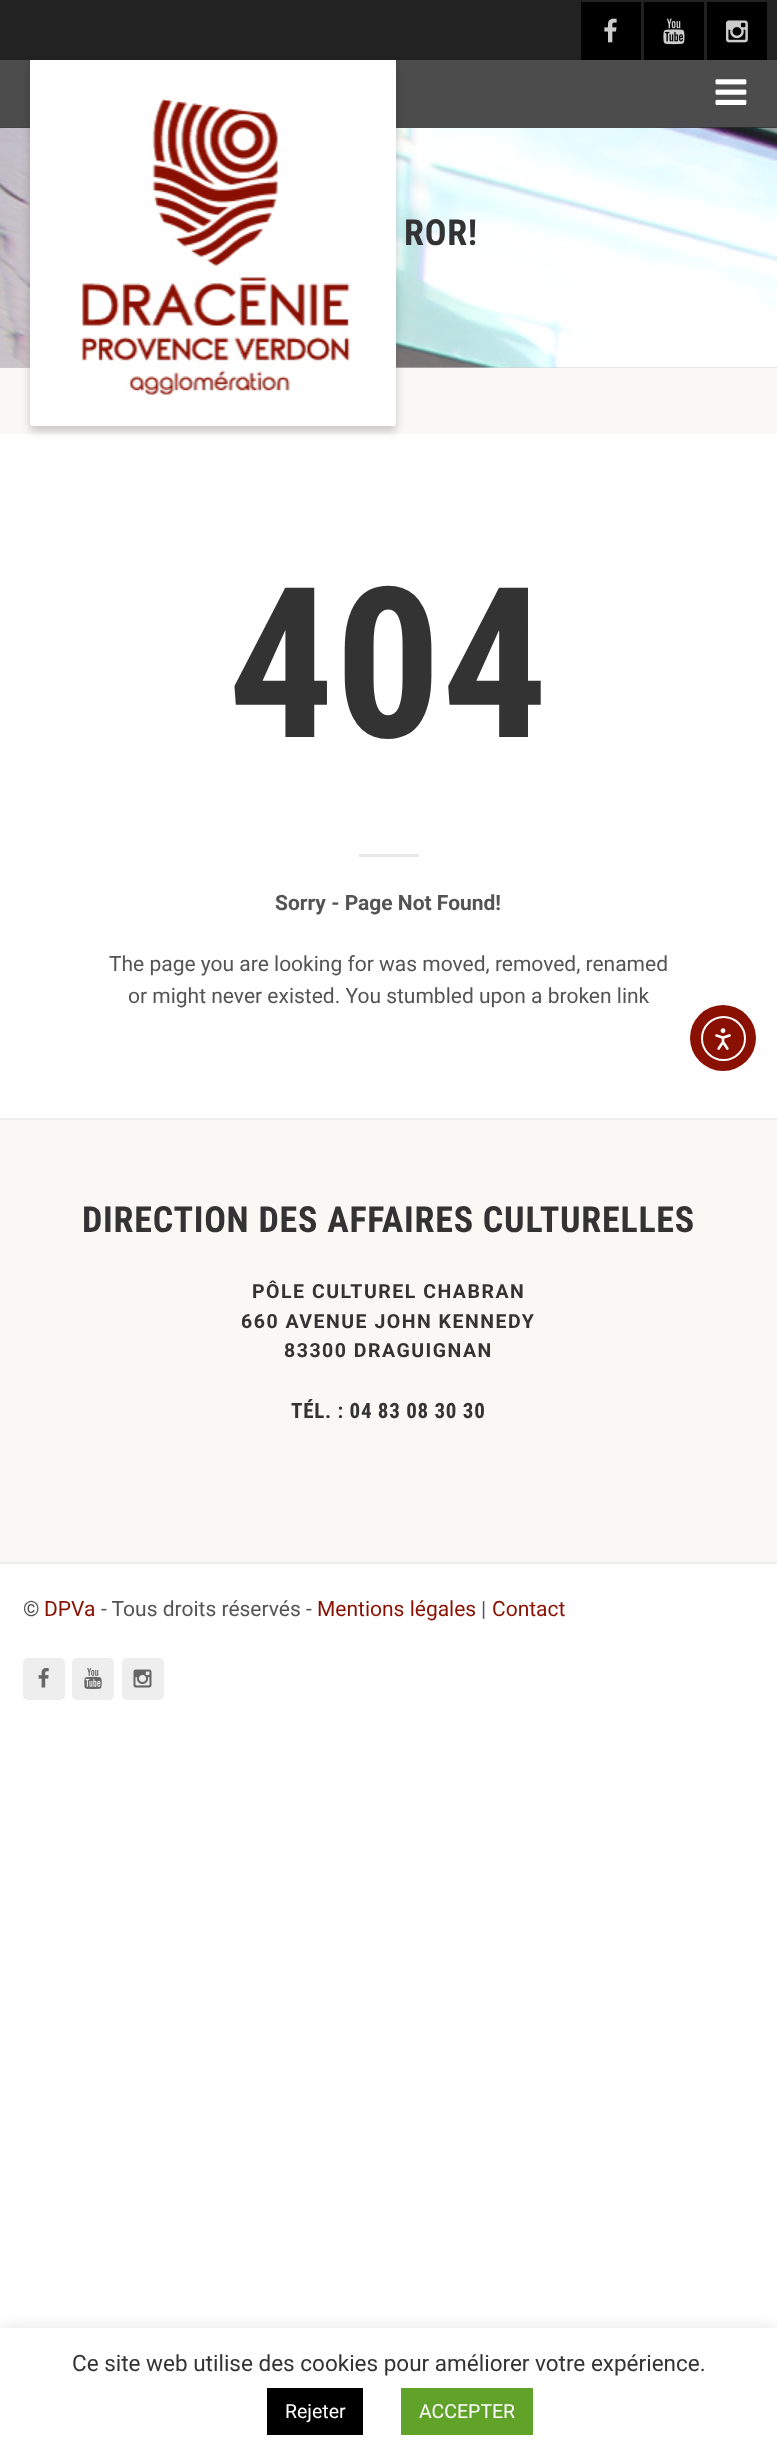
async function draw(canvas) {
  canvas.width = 777
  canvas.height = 2460
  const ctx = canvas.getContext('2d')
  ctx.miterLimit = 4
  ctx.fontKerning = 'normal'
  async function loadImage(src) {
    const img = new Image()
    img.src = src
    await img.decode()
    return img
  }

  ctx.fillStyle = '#fff'
  ctx.fillRect(0, 0, 777, 2460)
  ctx.fillStyle = '#222'
  ctx.fillRect(0, 0, 777, 60)
  ctx.fillStyle = '#000'
  ctx.fillRect(581, 2, 60, 58)
  ctx.drawImage(await loadImage('image0.png'), 604, 18, 13, 25)
  ctx.fillRect(644, 2, 60, 58)
  ctx.drawImage(await loadImage('image1.png'), 663, 18, 22, 27)
  ctx.fillRect(707, 2, 60, 58)
  ctx.drawImage(await loadImage('image2.png'), 726, 20, 22, 23)
  ctx.fillStyle = '#ccc'
  ctx.fillRect(0, 367, 777, 1)
  ctx.drawImage(await loadImage('image5.png'), 0, 127, 777, 241)
  ctx.fillStyle = '#000000b3'
  ctx.fillRect(0, 60, 777, 68)
  ctx.fillStyle = '#f9f8f5'
  ctx.fillRect(0, 368, 777, 66)
  ctx.fillStyle = '#00000033'
  ctx.filter = 'blur(4px)'
  ctx.beginPath()
  ctx.roundRect(30, 65, 366, 366, 3)
  ctx.fill()
  ctx.filter = 'none'
  ctx.fillStyle = '#fff'
  ctx.beginPath()
  ctx.roundRect(30, 60, 366, 366, [0, 0, 3, 3])
  ctx.fill()
  ctx.drawImage(await loadImage('image3.png'), 82, 98, 268, 301)
  ctx.drawImage(await loadImage('image4.png'), 715, 79, 32, 26)
  ctx.letterSpacing = '0.75px'
  ctx.font = 'bold 36px Roboto Condensed'
  ctx.fillStyle = '#333'
  ctx.fillText('ROR!', 404, 245)
  ctx.font = 'bold 210px Roboto Condensed'
  ctx.fillText('404', 228, 737)
  ctx.fillStyle = '#e8e8e8'
  ctx.fillRect(359, 854, 60, 3)
  ctx.letterSpacing = '0px'
  ctx.font = 'bold 21px Roboto'
  ctx.fillStyle = '#545454'
  ctx.fillText('Sorry - Page Not Found!', 275, 910)
  ctx.font = '21px Roboto'
  ctx.fillText('The page you are looking for was moved, removed, renamed', 109, 971)
  ctx.fillText('or might never existed. You stumbled upon a broken link', 128, 1003)
  ctx.fillStyle = '#f9f8f5'
  ctx.fillRect(0, 1120, 777, 442)
  ctx.fillStyle = '#eee'
  ctx.fillRect(0, 1118, 777, 2)
  ctx.letterSpacing = '0.75px'
  ctx.font = 'bold 36px Roboto Condensed'
  ctx.fillStyle = '#333'
  ctx.fillText('DIRECTION DES AFFAIRES CULTURELLES', 82, 1232)
  ctx.letterSpacing = '1.5px'
  ctx.font = 'bold 19.5px Roboto'
  ctx.fillText('PÔLE CULTUREL CHABRAN', 252, 1298)
  ctx.fillText('660 AVENUE JOHN KENNEDY', 241, 1328)
  ctx.fillText('83300 DRAGUIGNAN', 284, 1357)
  ctx.letterSpacing = '0.75px'
  ctx.font = 'bold 21px Roboto Condensed'
  ctx.fillText('TÉL. : 04 83 08 30 30', 291, 1418)
  ctx.fillStyle = '#eee'
  ctx.fillRect(0, 1562, 777, 2)
  ctx.letterSpacing = '0px'
  ctx.font = '21px Roboto'
  ctx.fillStyle = '#545454'
  ctx.fillText('©', 23, 1616)
  ctx.fillStyle = '#8a1002'
  ctx.fillText('DPVa', 44, 1616)
  ctx.fillStyle = '#545454'
  ctx.fillText('- Tous droits réservés -', 101, 1616)
  ctx.fillStyle = '#8a1002'
  ctx.fillText('Mentions légales', 317, 1616)
  ctx.fillStyle = '#545454'
  ctx.fillText('|', 481, 1616)
  ctx.fillStyle = '#8a1002'
  ctx.fillText('Contact', 492, 1616)
  ctx.fillStyle = '#eee'
  ctx.beginPath()
  ctx.roundRect(23, 1658, 42, 42, 5)
  ctx.fill()
  ctx.drawImage(await loadImage('image6.png'), 38, 1668, 11, 20)
  ctx.beginPath()
  ctx.roundRect(72, 1658, 42, 42, 5)
  ctx.fill()
  ctx.drawImage(await loadImage('image7.png'), 84, 1668, 18, 21)
  ctx.beginPath()
  ctx.roundRect(122, 1658, 42, 42, 5)
  ctx.fill()
  ctx.drawImage(await loadImage('image8.png'), 133, 1669, 19, 19)
  ctx.fillStyle = '#8a1002'
  ctx.beginPath()
  ctx.arc(723, 1038, 33, 0, 2 * Math.PI)
  ctx.fill()
  ctx.beginPath()
  ctx.arc(723.5, 1038.5, 21.5, 0, 2 * Math.PI)
  ctx.strokeStyle = '#fff'
  ctx.lineWidth = 2
  ctx.stroke()
  ctx.drawImage(await loadImage('image9.png'), 715, 1028, 16, 22)
  ctx.save()
  ctx.beginPath()
  ctx.rect(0, 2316, 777, 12)
  ctx.clip()
  ctx.fillStyle = '#acabab4d'
  ctx.filter = 'blur(7.5px)'
  ctx.beginPath()
  ctx.rect(0, 2327, 777, 132)
  ctx.fill()
  ctx.filter = 'none'
  ctx.restore()
  ctx.font = '22.5px Roboto'
  ctx.fillStyle = '#333'
  ctx.fillText('Ce site web utilise des cookies pour améliorer votre expérience.', 72, 2371)
  ctx.fillStyle = '#000'
  ctx.fillRect(267, 2388, 96, 47)
  ctx.font = '19.5px Roboto'
  ctx.fillStyle = '#fff'
  ctx.fillText('Rejeter', 285, 2418)
  ctx.fillStyle = '#61a229'
  ctx.fillRect(401, 2388, 132, 47)
  ctx.fillStyle = '#fff'
  ctx.fillText('ACCEPTER', 419, 2418)
}

draw(document.querySelector('canvas'))
